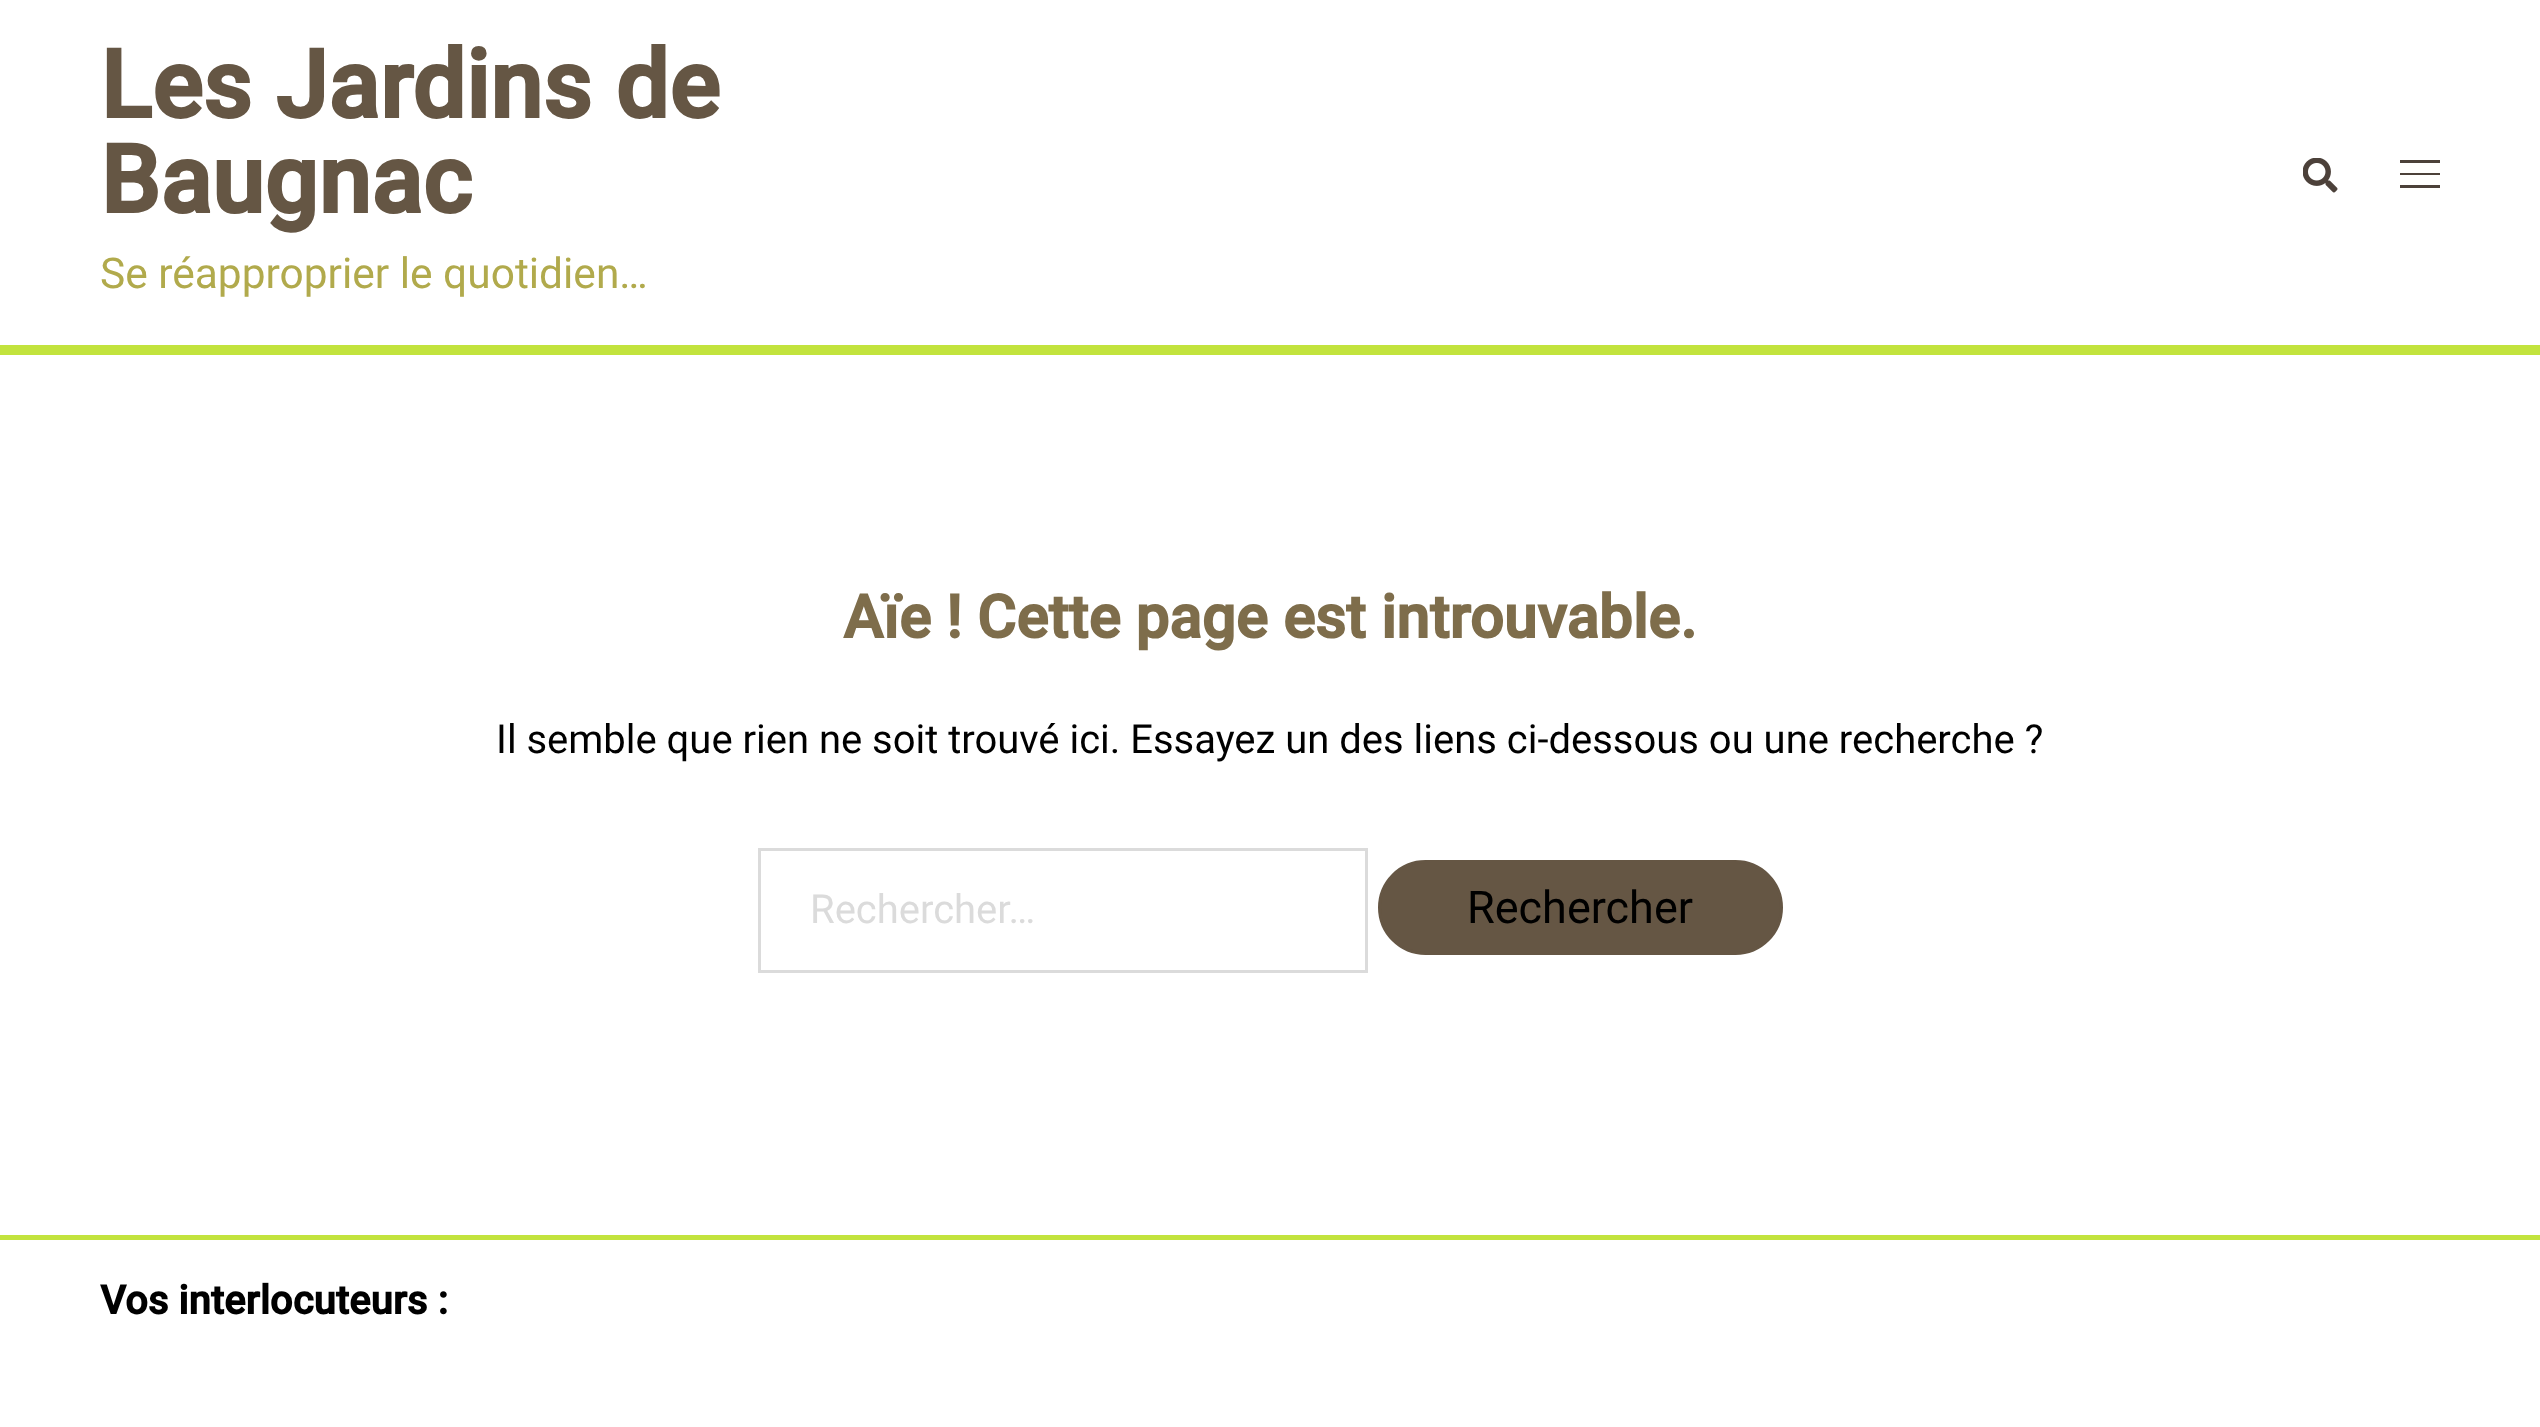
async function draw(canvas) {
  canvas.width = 2540
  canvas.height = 1427
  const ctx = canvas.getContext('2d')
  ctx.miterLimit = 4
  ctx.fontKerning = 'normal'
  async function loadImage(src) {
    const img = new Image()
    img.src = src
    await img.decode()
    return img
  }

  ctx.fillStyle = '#fff'
  ctx.fillRect(0, 0, 2540, 1427)
  ctx.fillStyle = '#c2e33d'
  ctx.fillRect(0, 345, 2540, 10)
  ctx.font = 'bold 95px Roboto'
  ctx.fillStyle = '#655644'
  ctx.fillText('Les Jardins de', 100, 118)
  ctx.fillText('Baugnac', 100, 213)
  ctx.font = '42.5px Roboto'
  ctx.fillStyle = '#b1aa4c'
  ctx.fillText('Se réapproprier le quotidien…', 100, 288)
  ctx.drawImage(await loadImage('image0.png'), 2303, 158, 35, 35)
  ctx.fillStyle = '#4c413a'
  ctx.fillRect(2400, 160, 40, 3)
  ctx.fillRect(2400, 173, 40, 2)
  ctx.fillRect(2400, 185, 40, 3)
  ctx.font = 'bold 60px Roboto'
  ctx.fillStyle = '#7e6d4b'
  ctx.fillText('Aïe ! Cette page est introuvable.', 843, 638)
  ctx.font = '40px Roboto'
  ctx.fillStyle = '#000'
  ctx.fillText('Il semble que rien ne soit trouvé ici. Essayez un des liens ci-dessous ou une recherche ?', 496, 753)
  ctx.strokeStyle = '#dbdbdb'
  ctx.lineWidth = 3
  ctx.strokeRect(759.5, 849.5, 607, 122)
  ctx.fillStyle = '#dbdbdb'
  ctx.fillText('Rechercher…', 810, 923)
  ctx.fillStyle = '#655644'
  ctx.beginPath()
  ctx.roundRect(1379.5, 861.5, 402, 92, 46)
  ctx.fill()
  ctx.strokeStyle = '#655644'
  ctx.stroke()
  ctx.font = '45px Roboto'
  ctx.fillStyle = '#000'
  ctx.fillText('Rechercher', 1467, 923)
  ctx.fillStyle = '#c2e33d'
  ctx.fillRect(0, 1235, 2540, 5)
  ctx.font = 'bold 40px Roboto'
  ctx.fillStyle = '#000'
  ctx.fillText('Vos interlocuteurs :', 100, 1314)
}

draw(document.querySelector('canvas'))
